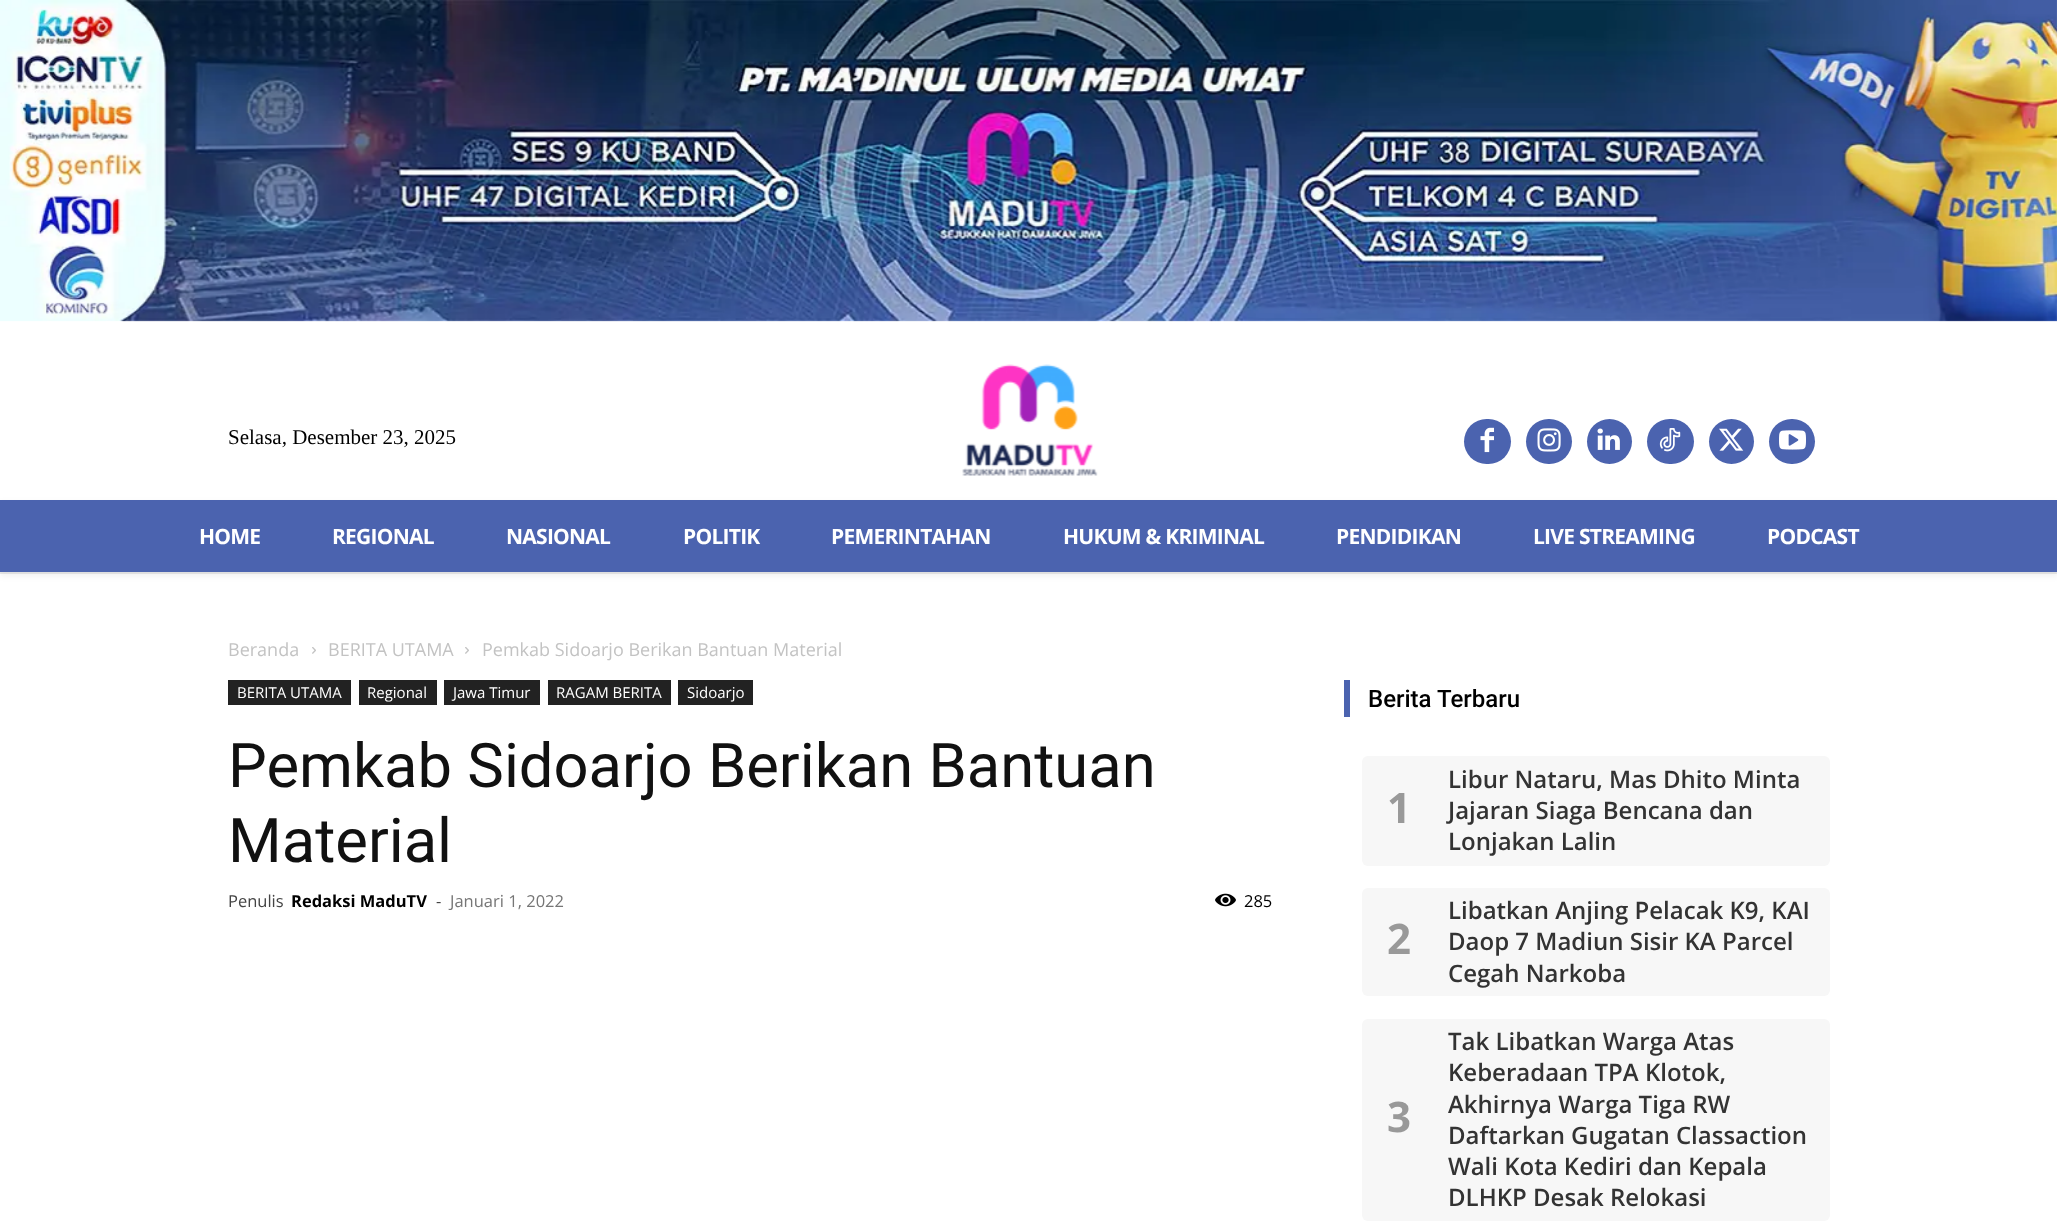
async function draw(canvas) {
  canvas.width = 2057
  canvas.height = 1232
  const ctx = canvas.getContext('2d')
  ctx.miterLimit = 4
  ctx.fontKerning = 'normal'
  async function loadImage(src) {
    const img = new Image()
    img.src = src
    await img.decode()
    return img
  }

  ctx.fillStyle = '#fff'
  ctx.fillRect(0, 0, 2057, 1232)
  ctx.drawImage(await loadImage('image0.png'), 0, 0, 2057, 322)
  ctx.font = '21px Liberation Serif'
  ctx.fillStyle = '#000'
  ctx.fillText('Selasa, Desember 23, 2025', 228, 444)
  ctx.drawImage(await loadImage('image1.png'), 962, 364, 136, 112)
  ctx.fillStyle = '#4b63af'
  ctx.beginPath()
  ctx.roundRect(1464, 419, 47, 45, 22.5)
  ctx.fill()
  ctx.drawImage(await loadImage('image2.png'), 1480, 427, 14, 26)
  ctx.beginPath()
  ctx.roundRect(1526, 419, 46, 45, 22.5)
  ctx.fill()
  ctx.drawImage(await loadImage('image3.png'), 1537, 428, 24, 24)
  ctx.beginPath()
  ctx.arc(1609.5, 441.5, 22.5, 0, 2 * Math.PI)
  ctx.fill()
  ctx.drawImage(await loadImage('image4.png'), 1597, 428, 23, 22)
  ctx.beginPath()
  ctx.roundRect(1647, 419, 47, 45, 22.5)
  ctx.fill()
  ctx.drawImage(await loadImage('image5.png'), 1659, 428, 22, 24)
  ctx.beginPath()
  ctx.arc(1731.5, 441.5, 22.5, 0, 2 * Math.PI)
  ctx.fill()
  ctx.drawImage(await loadImage('image6.png'), 1719, 428, 25, 23)
  ctx.beginPath()
  ctx.roundRect(1769, 419, 46, 45, 22.5)
  ctx.fill()
  ctx.drawImage(await loadImage('image7.png'), 1779, 430, 27, 20)
  ctx.fillStyle = '#eaeaea'
  ctx.fillRect(0, 572, 2057, 2)
  ctx.fillStyle = '#0000000f'
  ctx.filter = 'blur(3px)'
  ctx.beginPath()
  ctx.rect(0, 503, 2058, 73)
  ctx.fill()
  ctx.filter = 'none'
  ctx.fillStyle = '#4b63af'
  ctx.fillRect(0, 500, 2057, 72)
  ctx.letterSpacing = '-0.75px'
  ctx.font = 'bold 21px Open Sans'
  ctx.fillStyle = '#fff'
  ctx.fillText('HOME', 199, 544)
  ctx.fillText('REGIONAL', 332, 544)
  ctx.fillText('NASIONAL', 506, 544)
  ctx.fillText('POLITIK', 683, 544)
  ctx.fillText('PEMERINTAHAN', 831, 544)
  ctx.fillText('HUKUM & KRIMINAL', 1063, 544)
  ctx.fillText('PENDIDIKAN', 1336, 544)
  ctx.fillText('LIVE STREAMING', 1533, 544)
  ctx.fillText('PODCAST', 1767, 544)
  ctx.letterSpacing = '0px'
  ctx.font = '18px Open Sans'
  ctx.fillStyle = '#c3c3c3'
  ctx.fillText('Beranda', 228, 656)
  ctx.drawImage(await loadImage('image8.png'), 312, 647, 4, 7)
  ctx.fillText('BERITA UTAMA', 328, 656)
  ctx.drawImage(await loadImage('image8.png'), 465, 647, 4, 7)
  ctx.fillText('Pemkab Sidoarjo Berikan Bantuan Material', 482, 656)
  ctx.fillStyle = '#222'
  ctx.fillRect(228, 680, 123, 25)
  ctx.font = '15px Open Sans'
  ctx.fillStyle = '#fff'
  ctx.fillText('BERITA UTAMA', 237, 698)
  ctx.fillStyle = '#222'
  ctx.fillRect(359, 680, 78, 25)
  ctx.fillStyle = '#fff'
  ctx.fillText('Regional', 367, 698)
  ctx.fillStyle = '#222'
  ctx.fillRect(444, 680, 96, 25)
  ctx.fillStyle = '#fff'
  ctx.fillText('Jawa Timur', 453, 698)
  ctx.fillStyle = '#222'
  ctx.fillRect(548, 680, 123, 25)
  ctx.fillStyle = '#fff'
  ctx.fillText('RAGAM BERITA', 556, 698)
  ctx.fillStyle = '#222'
  ctx.fillRect(678, 680, 75, 25)
  ctx.fillStyle = '#fff'
  ctx.fillText('Sidoarjo', 687, 698)
  ctx.font = '61.5px Roboto'
  ctx.fillStyle = '#111'
  ctx.fillText('Pemkab Sidoarjo Berikan Bantuan', 228, 787)
  ctx.fillText('Material', 228, 862)
  ctx.font = '16.5px Open Sans'
  ctx.fillStyle = '#444'
  ctx.fillText('Penulis', 228, 907)
  ctx.font = 'bold 16.5px Open Sans'
  ctx.fillStyle = '#000'
  ctx.fillText('Redaksi MaduTV', 291, 907)
  ctx.font = '16.5px Open Sans'
  ctx.fillStyle = '#444'
  ctx.fillText('-', 436, 907)
  ctx.fillStyle = '#767676'
  ctx.fillText('Januari 1, 2022', 450, 907)
  ctx.drawImage(await loadImage('image9.png'), 1215, 893, 21, 14)
  ctx.fillStyle = '#000'
  ctx.fillText('285', 1244, 907)
  ctx.fillStyle = '#4b63af'
  ctx.fillRect(1344, 680, 6, 37)
  ctx.font = '500 24px Roboto'
  ctx.fillStyle = '#000'
  ctx.fillText('Berita Terbaru', 1368, 707)
  ctx.fillStyle = '#f7f7f7'
  ctx.beginPath()
  ctx.roundRect(1362, 756, 468, 110, 6)
  ctx.fill()
  ctx.font = 'bold 42px Open Sans'
  ctx.fillStyle = '#999'
  ctx.fillText('1', 1387, 823)
  ctx.font = '600 24px Open Sans'
  ctx.fillStyle = '#333'
  ctx.fillText('Libur Nataru, Mas Dhito Minta', 1448, 788)
  ctx.fillText('Jajaran Siaga Bencana dan', 1448, 819)
  ctx.fillText('Lonjakan Lalin', 1448, 850)
  ctx.fillStyle = '#f7f7f7'
  ctx.beginPath()
  ctx.roundRect(1362, 888, 468, 108, 6)
  ctx.fill()
  ctx.font = 'bold 42px Open Sans'
  ctx.fillStyle = '#999'
  ctx.fillText('2', 1387, 954)
  ctx.font = '600 24px Open Sans'
  ctx.fillStyle = '#333'
  ctx.fillText('Libatkan Anjing Pelacak K9, KAI', 1448, 919)
  ctx.fillText('Daop 7 Madiun Sisir KA Parcel', 1448, 950)
  ctx.fillText('Cegah Narkoba', 1448, 982)
  ctx.fillStyle = '#f7f7f7'
  ctx.beginPath()
  ctx.roundRect(1362, 1019, 468, 202, 6)
  ctx.fill()
  ctx.font = 'bold 42px Open Sans'
  ctx.fillStyle = '#999'
  ctx.fillText('3', 1387, 1132)
  ctx.font = '600 24px Open Sans'
  ctx.fillStyle = '#333'
  ctx.fillText('Tak Libatkan Warga Atas', 1448, 1050)
  ctx.fillText('Keberadaan TPA Klotok,', 1448, 1081)
  ctx.fillText('Akhirnya Warga Tiga RW', 1448, 1113)
  ctx.fillText('Daftarkan Gugatan Classaction', 1448, 1144)
  ctx.fillText('Wali Kota Kediri dan Kepala', 1448, 1175)
  ctx.fillText('DLHKP Desak Relokasi', 1448, 1206)
}

draw(document.querySelector('canvas'))
